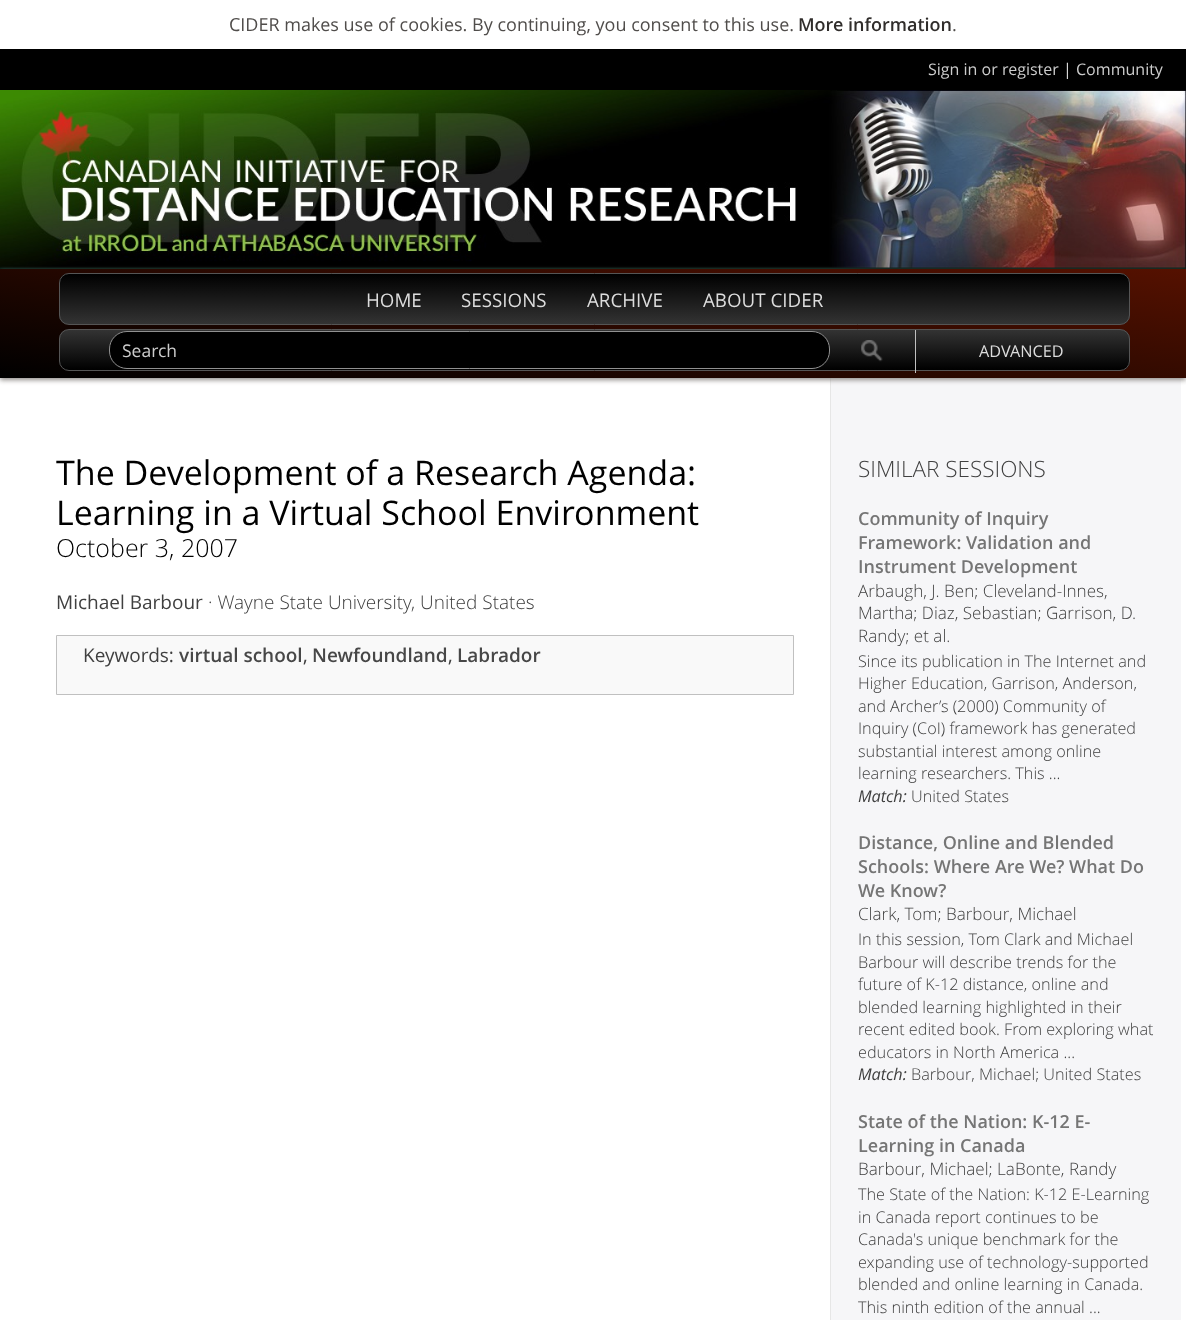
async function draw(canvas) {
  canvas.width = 1186
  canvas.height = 1320
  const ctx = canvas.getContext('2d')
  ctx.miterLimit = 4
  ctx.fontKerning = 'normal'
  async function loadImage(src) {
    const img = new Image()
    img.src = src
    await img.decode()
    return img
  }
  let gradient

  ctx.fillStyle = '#fff'
  ctx.fillRect(0, 0, 1186, 1320)
  ctx.fillStyle = '#000'
  ctx.fillRect(0, 49, 1186, 41)
  ctx.font = '18px Open Sans'
  ctx.fillStyle = '#504d4b'
  ctx.fillText('CIDER makes use of cookies. By continuing, you consent to this use.', 229, 31)
  ctx.font = '600 18px Open Sans'
  ctx.fillStyle = '#302d2b'
  ctx.fillText('More information', 798, 31)
  ctx.font = '18px Open Sans'
  ctx.fillStyle = '#504d4b'
  ctx.fillText('.', 952, 31)
  ctx.font = '16px Open Sans'
  ctx.fillStyle = '#ccc'
  ctx.fillText('Sign in or register', 928, 75)
  ctx.fillStyle = '#ddd'
  ctx.fillText('|', 1063, 75)
  ctx.fillStyle = '#ccc'
  ctx.fillText('Community', 1076, 75)
  ctx.fillStyle = '#001910'
  ctx.fillRect(0, 267, 1186, 2)
  ctx.drawImage(await loadImage('image0.png'), 0, 90, 1186, 178)
  ctx.fillStyle = '#f6f6f8'
  ctx.fillRect(831, 378, 350, 942)
  ctx.fillStyle = '#e6e6e6'
  ctx.fillRect(830, 378, 1, 942)
  ctx.fillStyle = '#908c89'
  ctx.filter = 'blur(2.5px)'
  ctx.beginPath()
  ctx.rect(0, 271, 1186, 109)
  ctx.fill()
  ctx.filter = 'none'
  gradient = ctx.createLinearGradient(574, 458, 612, 188)
  gradient.addColorStop(0, '#000')
  gradient.addColorStop(1, '#510')
  ctx.fillStyle = gradient
  ctx.fillRect(0, 269, 1186, 109)
  ctx.save()
  ctx.beginPath()
  ctx.roundRect(59, 273, 1071, 52, 10)
  ctx.clip()
  gradient = ctx.createLinearGradient(594, 274, 594, 324)
  gradient.addColorStop(0, '#000')
  gradient.addColorStop(1, '#333')
  ctx.fillStyle = gradient
  ctx.fillRect(59, 274, 1071, 50)
  ctx.restore()
  ctx.beginPath()
  ctx.roundRect(59.5, 273.5, 1070, 51, 9.5)
  ctx.strokeStyle = '#555'
  ctx.stroke()
  ctx.font = '18.75px Open Sans'
  ctx.fillStyle = '#ddd'
  ctx.fillText('HOME', 366, 307)
  ctx.fillText('SESSIONS', 461, 307)
  ctx.fillText('ARCHIVE', 587, 307)
  ctx.fillText('ABOUT CIDER', 703, 307)
  ctx.save()
  ctx.beginPath()
  ctx.roundRect(59, 329, 1071, 42, 10)
  ctx.clip()
  gradient = ctx.createLinearGradient(594, 330, 594, 370)
  gradient.addColorStop(0, '#333')
  gradient.addColorStop(1, '#000')
  ctx.fillStyle = gradient
  ctx.fillRect(59, 330, 1071, 40)
  ctx.restore()
  ctx.beginPath()
  ctx.roundRect(59.5, 329.5, 1070, 41, 9.5)
  ctx.stroke()
  ctx.fillStyle = '#000'
  ctx.beginPath()
  ctx.roundRect(109.5, 331.5, 720, 37, 17.5)
  ctx.fill()
  ctx.strokeStyle = '#909090'
  ctx.stroke()
  ctx.font = '17.5px Open Sans'
  ctx.fillStyle = '#ccc'
  ctx.fillText('Search', 122, 357)
  ctx.fillStyle = '#c0c0c0'
  ctx.fillRect(915, 330, 1, 43)
  ctx.drawImage(await loadImage('image1.png'), 861, 340, 22, 22)
  ctx.font = '16.25px Open Sans'
  ctx.fillStyle = '#ddd'
  ctx.fillText('ADVANCED', 979, 357)
  ctx.font = '34px Open Sans'
  ctx.fillStyle = '#000'
  ctx.fillText('The Development of a Research Agenda:', 56, 485)
  ctx.fillText('Learning in a Virtual School Environment', 56, 525)
  ctx.font = '300 25px Open Sans'
  ctx.fillText('October 3, 2007', 56, 557)
  ctx.font = '19px Open Sans'
  ctx.fillStyle = '#404040'
  ctx.fillText('Michael Barbour', 56, 609)
  ctx.font = '300 19px Open Sans'
  ctx.fillText('· Wayne State University, United States', 208, 609)
  ctx.fillStyle = '#f9f9f9'
  ctx.beginPath()
  ctx.rect(56.5, 635.5, 737, 59)
  ctx.fill()
  ctx.strokeStyle = '#c0c0c0'
  ctx.stroke()
  ctx.font = '19px Open Sans'
  ctx.fillStyle = '#404040'
  ctx.fillText('Keywords:', 83, 662)
  ctx.font = '600 19px Open Sans'
  ctx.fillStyle = '#474747'
  ctx.fillText('virtual school', 179, 662)
  ctx.font = '19px Open Sans'
  ctx.fillStyle = '#404040'
  ctx.fillText(',', 303, 662)
  ctx.font = '600 19px Open Sans'
  ctx.fillStyle = '#474747'
  ctx.fillText('Newfoundland', 312, 662)
  ctx.font = '19px Open Sans'
  ctx.fillStyle = '#404040'
  ctx.fillText(',', 448, 662)
  ctx.font = '600 19px Open Sans'
  ctx.fillStyle = '#474747'
  ctx.fillText('Labrador', 457, 662)
  ctx.font = '300 22.5px Open Sans'
  ctx.fillStyle = '#404040'
  ctx.fillText('SIMILAR SESSIONS', 858, 477)
  ctx.font = '600 18px Open Sans'
  ctx.fillStyle = '#757575'
  ctx.fillText('Community of Inquiry', 858, 525)
  ctx.fillText('Framework: Validation and', 858, 549)
  ctx.fillText('Instrument Development', 858, 573)
  ctx.font = '300 17.1px Open Sans'
  ctx.fillStyle = '#404040'
  ctx.fillText('Arbaugh, J. Ben; Cleveland-Innes,', 858, 597)
  ctx.fillText('Martha; Diaz, Sebastian; Garrison, D.', 858, 619)
  ctx.fillText('Randy; et al.', 858, 642)
  ctx.font = '300 16.25px Open Sans'
  ctx.fillText('Since its publication in The Internet and', 858, 667)
  ctx.fillText('Higher Education, Garrison, Anderson,', 858, 689)
  ctx.fillText('and Archer’s (2000) Community of', 858, 712)
  ctx.fillText('Inquiry (CoI) framework has generated', 858, 734)
  ctx.fillText('substantial interest among online', 858, 757)
  ctx.fillText('learning researchers. This ...', 858, 779)
  ctx.font = 'italic 16.25px Open Sans'
  ctx.fillText('Match:', 858, 802)
  ctx.font = '300 16.25px Open Sans'
  ctx.fillText('United States', 911, 802)
  ctx.font = '600 18px Open Sans'
  ctx.fillStyle = '#757575'
  ctx.fillText('Distance, Online and Blended', 858, 849)
  ctx.fillText('Schools: Where Are We? What Do', 858, 873)
  ctx.fillText('We Know?', 858, 897)
  ctx.font = '300 17.1px Open Sans'
  ctx.fillStyle = '#404040'
  ctx.fillText('Clark, Tom; Barbour, Michael', 858, 920)
  ctx.font = '300 16.25px Open Sans'
  ctx.fillText('In this session, Tom Clark and Michael', 858, 945)
  ctx.fillText('Barbour will describe trends for the', 858, 968)
  ctx.fillText('future of K-12 distance, online and', 858, 990)
  ctx.fillText('blended learning highlighted in their', 858, 1013)
  ctx.fillText('recent edited book. From exploring what', 858, 1035)
  ctx.fillText('educators in North America ...', 858, 1058)
  ctx.font = 'italic 16.25px Open Sans'
  ctx.fillText('Match:', 858, 1080)
  ctx.font = '300 16.25px Open Sans'
  ctx.fillText('Barbour, Michael; United States', 911, 1080)
  ctx.font = '600 18px Open Sans'
  ctx.fillStyle = '#757575'
  ctx.fillText('State of the Nation: K-12 E-', 858, 1128)
  ctx.fillText('Learning in Canada', 858, 1152)
  ctx.font = '300 17.1px Open Sans'
  ctx.fillStyle = '#404040'
  ctx.fillText('Barbour, Michael; LaBonte, Randy', 858, 1175)
  ctx.font = '300 16.25px Open Sans'
  ctx.fillText('The State of the Nation: K-12 E-Learning', 858, 1200)
  ctx.fillText('in Canada report continues to be', 858, 1223)
  ctx.fillText('Canada\'s unique benchmark for the', 858, 1245)
  ctx.fillText('expanding use of technology-supported', 858, 1268)
  ctx.fillText('blended and online learning in Canada.', 858, 1290)
  ctx.fillText('This ninth edition of the annual ...', 858, 1313)
}

draw(document.querySelector('canvas'))
